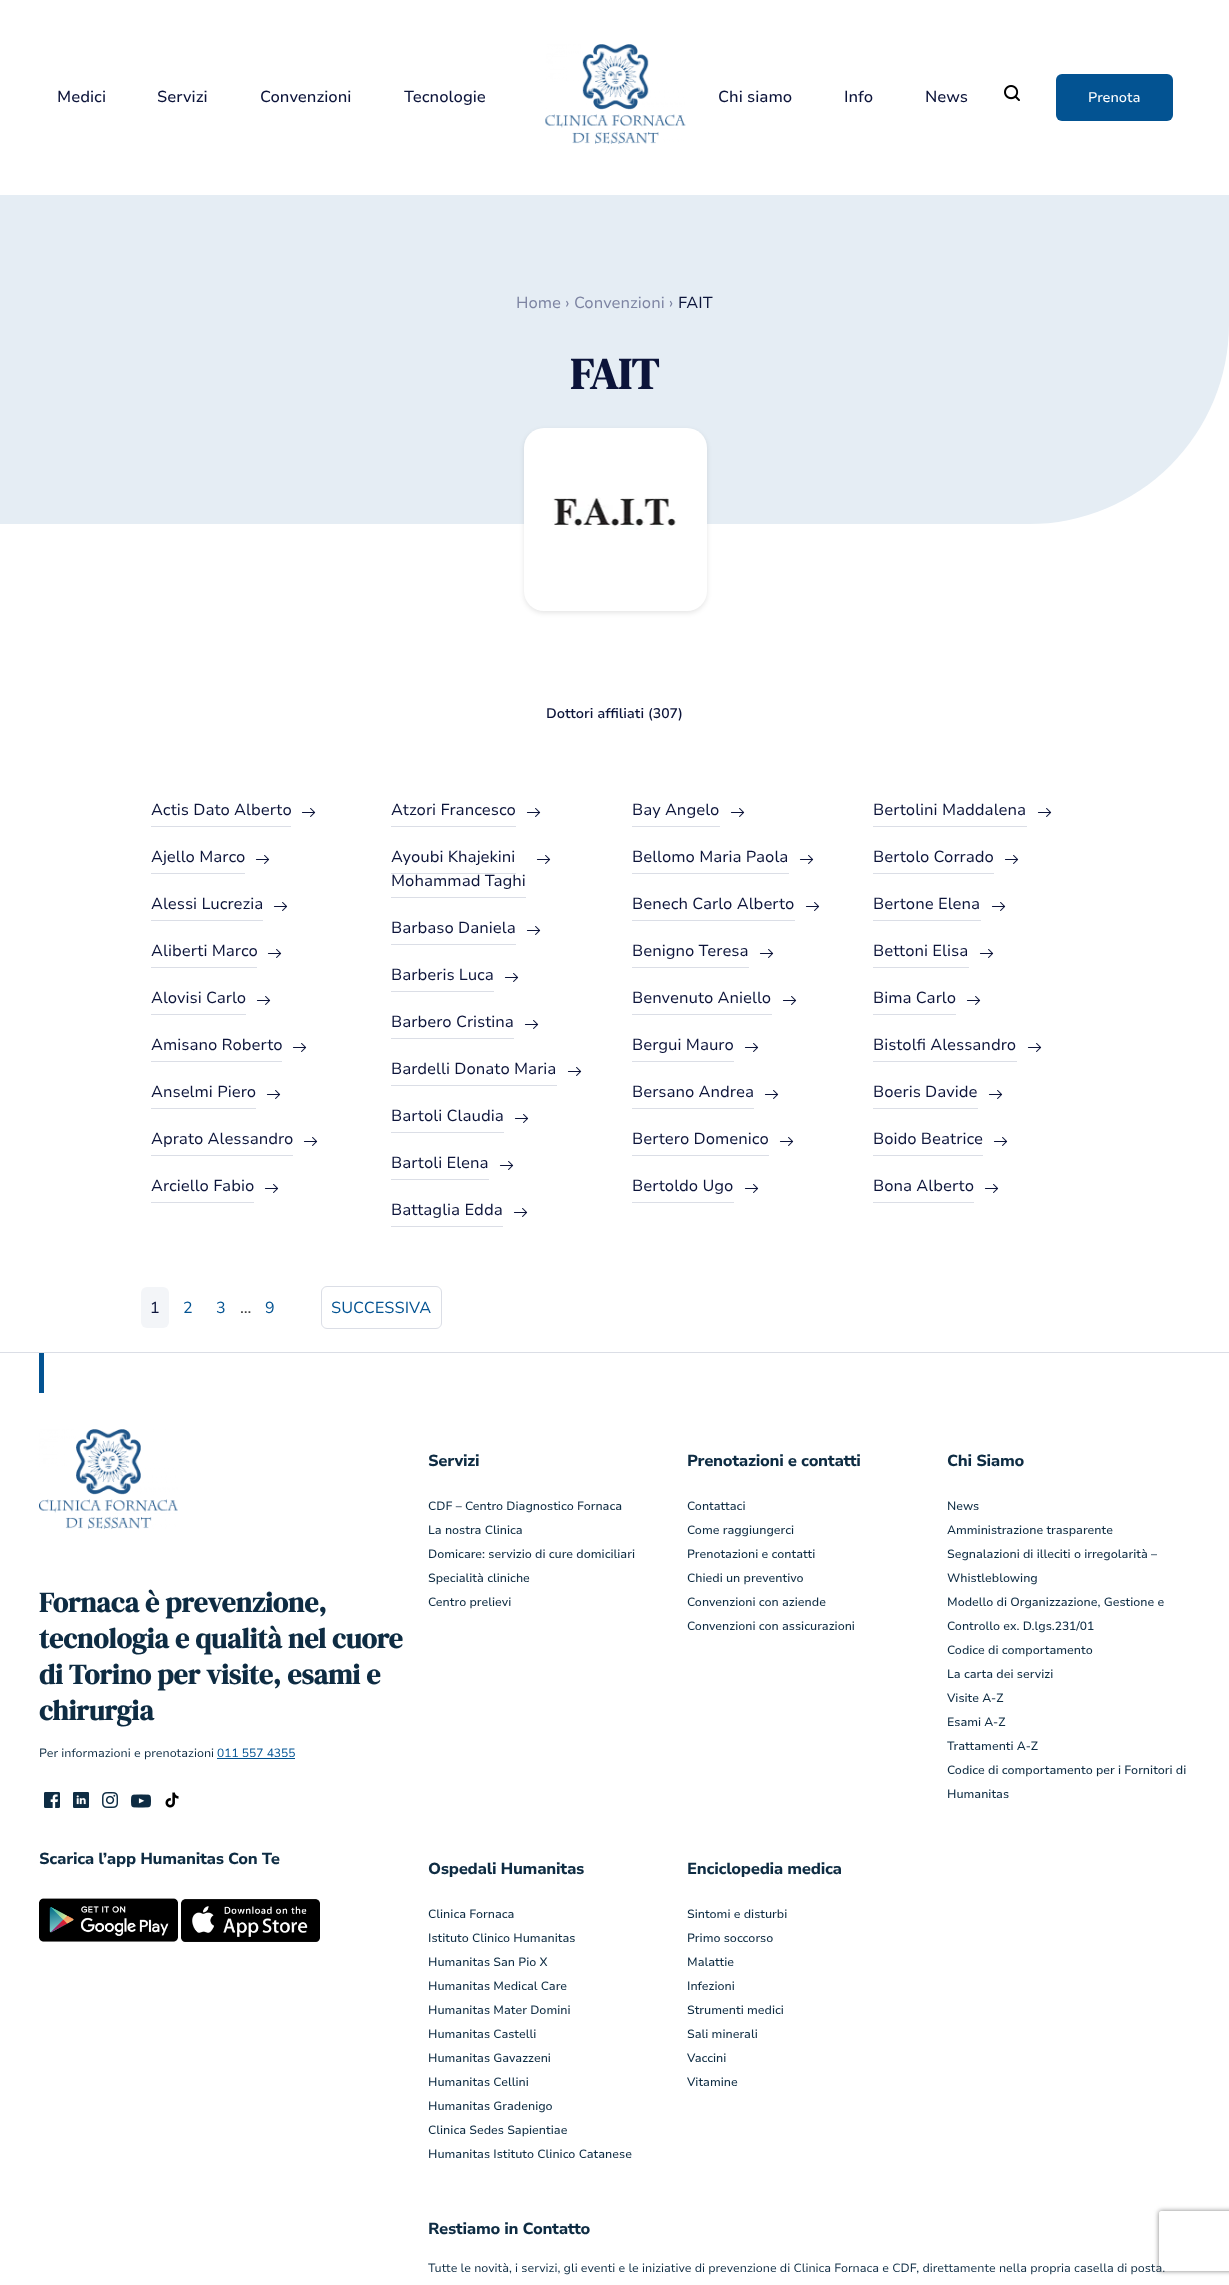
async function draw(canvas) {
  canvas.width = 1229
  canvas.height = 2285
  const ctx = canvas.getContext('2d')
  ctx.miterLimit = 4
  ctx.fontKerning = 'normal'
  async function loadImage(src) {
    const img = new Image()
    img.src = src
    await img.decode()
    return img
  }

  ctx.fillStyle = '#fff'
  ctx.fillRect(0, 0, 1229, 2285)
  ctx.drawImage(await loadImage('image0.png'), 545, 44, 141, 100)
  ctx.font = '500 16px Nunito Sans'
  ctx.fillStyle = '#0c143a'
  ctx.fillText('Medici', 57, 102)
  ctx.fillText('Servizi', 157, 102)
  ctx.fillText('Convenzioni', 260, 102)
  ctx.fillText('Tecnologie', 404, 102)
  ctx.fillText('Chi siamo', 718, 102)
  ctx.fillText('Info', 844, 102)
  ctx.fillText('News', 925, 102)
  ctx.drawImage(await loadImage('image1.png'), 1004, 85, 16, 16)
  ctx.fillStyle = '#035392'
  ctx.beginPath()
  ctx.roundRect(1056, 74, 117, 47, 6)
  ctx.fill()
  ctx.font = '500 14px Nunito Sans'
  ctx.fillStyle = '#fff'
  ctx.fillText('Prenota', 1088, 102)
  ctx.fillStyle = '#e5edf4'
  ctx.beginPath()
  ctx.roundRect(0, 195, 1229, 329, [0, 0, 200, 0])
  ctx.fill()
  ctx.font = '16px Nunito Sans'
  ctx.fillStyle = '#7d84a2'
  ctx.fillText('Home › Convenzioni ›', 516, 308)
  ctx.fillStyle = '#0c143a'
  ctx.fillText('FAIT', 678, 308)
  ctx.font = 'bold 44px DM Serif Display'
  ctx.fillText('FAIT', 570, 389)
  ctx.fillStyle = '#0000001a'
  ctx.filter = 'blur(2.5px)'
  ctx.beginPath()
  ctx.roundRect(524, 430, 183, 183, 20)
  ctx.fill()
  ctx.filter = 'none'
  ctx.fillStyle = '#fff'
  ctx.beginPath()
  ctx.roundRect(524, 428, 183, 183, 20)
  ctx.fill()
  ctx.drawImage(await loadImage('image2.png'), 552, 497, 124, 33)
  ctx.font = '600 14px Nunito Sans'
  ctx.fillStyle = '#0c143a'
  ctx.fillText('Dottori affiliati (307)', 546, 718)
  ctx.font = '16px Nunito Sans'
  ctx.fillText('Actis Dato Alberto', 151, 815)
  ctx.fillStyle = '#dbdee6'
  ctx.fillRect(151, 826, 140, 1)
  ctx.drawImage(await loadImage('image3.png'), 301, 808, 15, 9)
  ctx.fillStyle = '#0c143a'
  ctx.fillText('Atzori Francesco', 391, 815)
  ctx.fillStyle = '#dbdee6'
  ctx.fillRect(391, 826, 125, 1)
  ctx.drawImage(await loadImage('image3.png'), 526, 808, 15, 9)
  ctx.fillStyle = '#0c143a'
  ctx.fillText('Bay Angelo', 632, 815)
  ctx.fillStyle = '#dbdee6'
  ctx.fillRect(632, 826, 88, 1)
  ctx.drawImage(await loadImage('image3.png'), 730, 808, 15, 9)
  ctx.fillStyle = '#0c143a'
  ctx.fillText('Bertolini Maddalena', 873, 815)
  ctx.fillStyle = '#dbdee6'
  ctx.fillRect(873, 826, 154, 1)
  ctx.drawImage(await loadImage('image3.png'), 1037, 808, 15, 9)
  ctx.fillStyle = '#0c143a'
  ctx.fillText('Ajello Marco', 151, 862)
  ctx.fillStyle = '#dbdee6'
  ctx.fillRect(151, 873, 94, 1)
  ctx.drawImage(await loadImage('image3.png'), 255, 855, 15, 9)
  ctx.fillStyle = '#0c143a'
  ctx.fillText('Ayoubi Khajekini', 391, 862)
  ctx.drawImage(await loadImage('image3.png'), 536, 855, 15, 9)
  ctx.fillText('Mohammad Taghi', 391, 886)
  ctx.fillStyle = '#dbdee6'
  ctx.fillRect(391, 873, 125, 1)
  ctx.fillRect(391, 897, 135, 1)
  ctx.fillStyle = '#0c143a'
  ctx.fillText('Bellomo Maria Paola', 632, 862)
  ctx.fillStyle = '#dbdee6'
  ctx.fillRect(632, 873, 157, 1)
  ctx.drawImage(await loadImage('image3.png'), 799, 855, 15, 9)
  ctx.fillStyle = '#0c143a'
  ctx.fillText('Bertolo Corrado', 873, 862)
  ctx.fillStyle = '#dbdee6'
  ctx.fillRect(873, 873, 121, 1)
  ctx.drawImage(await loadImage('image3.png'), 1004, 855, 15, 9)
  ctx.fillStyle = '#0c143a'
  ctx.fillText('Alessi Lucrezia', 151, 909)
  ctx.fillStyle = '#dbdee6'
  ctx.fillRect(151, 920, 112, 1)
  ctx.drawImage(await loadImage('image3.png'), 273, 902, 15, 9)
  ctx.fillStyle = '#0c143a'
  ctx.fillText('Benech Carlo Alberto', 632, 909)
  ctx.fillStyle = '#dbdee6'
  ctx.fillRect(632, 920, 163, 1)
  ctx.drawImage(await loadImage('image3.png'), 805, 902, 15, 9)
  ctx.fillStyle = '#0c143a'
  ctx.fillText('Bertone Elena', 873, 909)
  ctx.fillStyle = '#dbdee6'
  ctx.fillRect(873, 920, 108, 1)
  ctx.drawImage(await loadImage('image3.png'), 991, 902, 15, 9)
  ctx.fillStyle = '#0c143a'
  ctx.fillText('Barbaso Daniela', 391, 933)
  ctx.fillStyle = '#dbdee6'
  ctx.fillRect(391, 944, 125, 1)
  ctx.drawImage(await loadImage('image3.png'), 526, 926, 15, 9)
  ctx.fillStyle = '#0c143a'
  ctx.fillText('Aliberti Marco', 151, 956)
  ctx.fillStyle = '#dbdee6'
  ctx.fillRect(151, 967, 106, 1)
  ctx.drawImage(await loadImage('image3.png'), 267, 949, 15, 9)
  ctx.fillStyle = '#0c143a'
  ctx.fillText('Benigno Teresa', 632, 956)
  ctx.fillStyle = '#dbdee6'
  ctx.fillRect(632, 967, 117, 1)
  ctx.drawImage(await loadImage('image3.png'), 759, 949, 15, 9)
  ctx.fillStyle = '#0c143a'
  ctx.fillText('Bettoni Elisa', 873, 956)
  ctx.fillStyle = '#dbdee6'
  ctx.fillRect(873, 967, 96, 1)
  ctx.drawImage(await loadImage('image3.png'), 979, 949, 15, 9)
  ctx.fillStyle = '#0c143a'
  ctx.fillText('Barberis Luca', 391, 980)
  ctx.fillStyle = '#dbdee6'
  ctx.fillRect(391, 991, 103, 1)
  ctx.drawImage(await loadImage('image3.png'), 504, 973, 15, 9)
  ctx.fillStyle = '#0c143a'
  ctx.fillText('Alovisi Carlo', 151, 1003)
  ctx.fillStyle = '#dbdee6'
  ctx.fillRect(151, 1014, 95, 1)
  ctx.drawImage(await loadImage('image3.png'), 256, 996, 15, 9)
  ctx.fillStyle = '#0c143a'
  ctx.fillText('Benvenuto Aniello', 632, 1003)
  ctx.fillStyle = '#dbdee6'
  ctx.fillRect(632, 1014, 140, 1)
  ctx.drawImage(await loadImage('image3.png'), 782, 996, 15, 9)
  ctx.fillStyle = '#0c143a'
  ctx.fillText('Bima Carlo', 873, 1003)
  ctx.fillStyle = '#dbdee6'
  ctx.fillRect(873, 1014, 83, 1)
  ctx.drawImage(await loadImage('image3.png'), 966, 996, 15, 9)
  ctx.fillStyle = '#0c143a'
  ctx.fillText('Barbero Cristina', 391, 1027)
  ctx.fillStyle = '#dbdee6'
  ctx.fillRect(391, 1038, 123, 1)
  ctx.drawImage(await loadImage('image3.png'), 524, 1020, 15, 9)
  ctx.fillStyle = '#0c143a'
  ctx.fillText('Amisano Roberto', 151, 1050)
  ctx.fillStyle = '#dbdee6'
  ctx.fillRect(151, 1061, 131, 1)
  ctx.drawImage(await loadImage('image3.png'), 292, 1043, 15, 9)
  ctx.fillStyle = '#0c143a'
  ctx.fillText('Bergui Mauro', 632, 1050)
  ctx.fillStyle = '#dbdee6'
  ctx.fillRect(632, 1061, 102, 1)
  ctx.drawImage(await loadImage('image3.png'), 744, 1043, 15, 9)
  ctx.fillStyle = '#0c143a'
  ctx.fillText('Bistolfi Alessandro', 873, 1050)
  ctx.fillStyle = '#dbdee6'
  ctx.fillRect(873, 1061, 144, 1)
  ctx.drawImage(await loadImage('image3.png'), 1027, 1043, 15, 9)
  ctx.fillStyle = '#0c143a'
  ctx.fillText('Bardelli Donato Maria', 391, 1074)
  ctx.fillStyle = '#dbdee6'
  ctx.fillRect(391, 1085, 166, 1)
  ctx.drawImage(await loadImage('image3.png'), 567, 1067, 15, 9)
  ctx.fillStyle = '#0c143a'
  ctx.fillText('Anselmi Piero', 151, 1097)
  ctx.fillStyle = '#dbdee6'
  ctx.fillRect(151, 1108, 105, 1)
  ctx.drawImage(await loadImage('image3.png'), 266, 1090, 15, 9)
  ctx.fillStyle = '#0c143a'
  ctx.fillText('Bersano Andrea', 632, 1097)
  ctx.fillStyle = '#dbdee6'
  ctx.fillRect(632, 1108, 122, 1)
  ctx.drawImage(await loadImage('image3.png'), 764, 1090, 15, 9)
  ctx.fillStyle = '#0c143a'
  ctx.fillText('Boeris Davide', 873, 1097)
  ctx.fillStyle = '#dbdee6'
  ctx.fillRect(873, 1108, 105, 1)
  ctx.drawImage(await loadImage('image3.png'), 988, 1090, 15, 9)
  ctx.fillStyle = '#0c143a'
  ctx.fillText('Bartoli Claudia', 391, 1121)
  ctx.fillStyle = '#dbdee6'
  ctx.fillRect(391, 1132, 113, 1)
  ctx.drawImage(await loadImage('image3.png'), 514, 1114, 15, 9)
  ctx.fillStyle = '#0c143a'
  ctx.fillText('Aprato Alessandro', 151, 1144)
  ctx.fillStyle = '#dbdee6'
  ctx.fillRect(151, 1155, 142, 1)
  ctx.drawImage(await loadImage('image3.png'), 303, 1137, 15, 9)
  ctx.fillStyle = '#0c143a'
  ctx.fillText('Bertero Domenico', 632, 1144)
  ctx.fillStyle = '#dbdee6'
  ctx.fillRect(632, 1155, 137, 1)
  ctx.drawImage(await loadImage('image3.png'), 779, 1137, 15, 9)
  ctx.fillStyle = '#0c143a'
  ctx.fillText('Boido Beatrice', 873, 1144)
  ctx.fillStyle = '#dbdee6'
  ctx.fillRect(873, 1155, 110, 1)
  ctx.drawImage(await loadImage('image3.png'), 993, 1137, 15, 9)
  ctx.fillStyle = '#0c143a'
  ctx.fillText('Bartoli Elena', 391, 1168)
  ctx.fillStyle = '#dbdee6'
  ctx.fillRect(391, 1179, 98, 1)
  ctx.drawImage(await loadImage('image3.png'), 499, 1161, 15, 9)
  ctx.fillStyle = '#0c143a'
  ctx.fillText('Arciello Fabio', 151, 1191)
  ctx.fillStyle = '#dbdee6'
  ctx.fillRect(151, 1202, 103, 1)
  ctx.drawImage(await loadImage('image3.png'), 264, 1184, 15, 9)
  ctx.fillStyle = '#0c143a'
  ctx.fillText('Bertoldo Ugo', 632, 1191)
  ctx.fillStyle = '#dbdee6'
  ctx.fillRect(632, 1202, 102, 1)
  ctx.drawImage(await loadImage('image3.png'), 744, 1184, 15, 9)
  ctx.fillStyle = '#0c143a'
  ctx.fillText('Bona Alberto', 873, 1191)
  ctx.fillStyle = '#dbdee6'
  ctx.fillRect(873, 1202, 101, 1)
  ctx.drawImage(await loadImage('image3.png'), 984, 1184, 15, 9)
  ctx.fillStyle = '#0c143a'
  ctx.fillText('Battaglia Edda', 391, 1215)
  ctx.fillStyle = '#dbdee6'
  ctx.fillRect(391, 1226, 112, 1)
  ctx.drawImage(await loadImage('image3.png'), 513, 1208, 15, 9)
  ctx.fillStyle = '#f3f5f8'
  ctx.beginPath()
  ctx.roundRect(141, 1287, 28, 41, 6)
  ctx.fill()
  ctx.fillStyle = '#0c143a'
  ctx.fillText('1', 150, 1313)
  ctx.fillStyle = '#035392'
  ctx.fillText('2', 183, 1313)
  ctx.fillText('3', 216, 1313)
  ctx.fillStyle = '#404040'
  ctx.fillText('…', 240, 1313)
  ctx.fillStyle = '#035392'
  ctx.fillText('9', 265, 1313)
  ctx.beginPath()
  ctx.roundRect(321.5, 1286.5, 120, 42, 5.5)
  ctx.strokeStyle = '#dbdee6'
  ctx.stroke()
  ctx.fillText('SUCCESSIVA', 331, 1313)
  ctx.fillStyle = '#dbdee6'
  ctx.fillRect(0, 1352, 1229, 1)
  ctx.fillStyle = '#035392'
  ctx.fillRect(39, 1353, 5, 40)
  ctx.drawImage(await loadImage('image4.png'), 39, 1429, 139, 100)
  ctx.font = 'bold 28px DM Serif Display'
  ctx.fillStyle = '#0e2c43'
  ctx.fillText('Fornaca è prevenzione,', 39, 1612)
  ctx.fillText('tecnologia e qualità nel cuore', 39, 1648)
  ctx.fillText('di Torino per visite, esami e', 39, 1684)
  ctx.fillText('chirurgia', 39, 1720)
  ctx.font = '12px Nunito Sans'
  ctx.fillText('Per informazioni e prenotazioni', 39, 1757)
  ctx.fillStyle = '#035392'
  ctx.fillText('011 557 4355', 217, 1757)
  ctx.fillRect(217, 1758, 78, 1)
  ctx.drawImage(await loadImage('image5.png'), 44, 1792, 16, 16)
  ctx.drawImage(await loadImage('image6.png'), 73, 1792, 16, 16)
  ctx.drawImage(await loadImage('image7.png'), 102, 1792, 16, 16)
  ctx.drawImage(await loadImage('image8.png'), 131, 1794, 20, 14)
  ctx.drawImage(await loadImage('image9.png'), 165, 1792, 14, 16)
  ctx.letterSpacing = '-0.3px'
  ctx.font = '800 16px Nunito Sans'
  ctx.fillStyle = '#0e2c43'
  ctx.fillText('Scarica l’app Humanitas Con Te', 39, 1864)
  ctx.drawImage(await loadImage('image10.png'), 39, 1898, 139, 44)
  ctx.drawImage(await loadImage('image11.png'), 181, 1899, 139, 43)
  ctx.fillText('Servizi', 428, 1466)
  ctx.letterSpacing = '0px'
  ctx.font = '500 12px Nunito Sans'
  ctx.fillText('CDF – Centro Diagnostico Fornaca', 428, 1510)
  ctx.fillText('La nostra Clinica', 428, 1534)
  ctx.fillText('Domicare: servizio di cure domiciliari', 428, 1558)
  ctx.fillText('Specialità cliniche', 428, 1582)
  ctx.fillText('Centro prelievi', 428, 1606)
  ctx.letterSpacing = '-0.3px'
  ctx.font = '800 16px Nunito Sans'
  ctx.fillText('Prenotazioni e contatti', 687, 1466)
  ctx.letterSpacing = '0px'
  ctx.font = '500 12px Nunito Sans'
  ctx.fillText('Contattaci', 687, 1510)
  ctx.fillText('Come raggiungerci', 687, 1534)
  ctx.fillText('Prenotazioni e contatti', 687, 1558)
  ctx.fillText('Chiedi un preventivo', 687, 1582)
  ctx.fillText('Convenzioni con aziende', 687, 1606)
  ctx.fillText('Convenzioni con assicurazioni', 687, 1630)
  ctx.letterSpacing = '-0.3px'
  ctx.font = '800 16px Nunito Sans'
  ctx.fillText('Chi Siamo', 947, 1466)
  ctx.letterSpacing = '0px'
  ctx.font = '500 12px Nunito Sans'
  ctx.fillText('News', 947, 1510)
  ctx.fillText('Amministrazione trasparente', 947, 1534)
  ctx.fillText('Segnalazioni di illeciti o irregolarità –', 947, 1558)
  ctx.fillText('Whistleblowing', 947, 1582)
  ctx.fillText('Modello di Organizzazione, Gestione e', 947, 1606)
  ctx.fillText('Controllo ex. D.lgs.231/01', 947, 1630)
  ctx.fillText('Codice di comportamento', 947, 1654)
  ctx.fillText('La carta dei servizi', 947, 1678)
  ctx.fillText('Visite A-Z', 947, 1702)
  ctx.fillText('Esami A-Z', 947, 1726)
  ctx.fillText('Trattamenti A-Z', 947, 1750)
  ctx.fillText('Codice di comportamento per i Fornitori di', 947, 1774)
  ctx.fillText('Humanitas', 947, 1798)
  ctx.letterSpacing = '-0.3px'
  ctx.font = '800 16px Nunito Sans'
  ctx.fillText('Ospedali Humanitas', 428, 1874)
  ctx.letterSpacing = '0px'
  ctx.font = '500 12px Nunito Sans'
  ctx.fillText('Clinica Fornaca', 428, 1918)
  ctx.fillText('Istituto Clinico Humanitas', 428, 1942)
  ctx.fillText('Humanitas San Pio X', 428, 1966)
  ctx.fillText('Humanitas Medical Care', 428, 1990)
  ctx.fillText('Humanitas Mater Domini', 428, 2014)
  ctx.fillText('Humanitas Castelli', 428, 2038)
  ctx.fillText('Humanitas Gavazzeni', 428, 2062)
  ctx.fillText('Humanitas Cellini', 428, 2086)
  ctx.fillText('Humanitas Gradenigo', 428, 2110)
  ctx.fillText('Clinica Sedes Sapientiae', 428, 2134)
  ctx.fillText('Humanitas Istituto Clinico Catanese', 428, 2158)
  ctx.letterSpacing = '-0.3px'
  ctx.font = '800 16px Nunito Sans'
  ctx.fillText('Enciclopedia medica', 687, 1874)
  ctx.letterSpacing = '0px'
  ctx.font = '500 12px Nunito Sans'
  ctx.fillText('Sintomi e disturbi', 687, 1918)
  ctx.fillText('Primo soccorso', 687, 1942)
  ctx.fillText('Malattie', 687, 1966)
  ctx.fillText('Infezioni', 687, 1990)
  ctx.fillText('Strumenti medici', 687, 2014)
  ctx.fillText('Sali minerali', 687, 2038)
  ctx.fillText('Vaccini', 687, 2062)
  ctx.fillText('Vitamine', 687, 2086)
  ctx.letterSpacing = '-0.3px'
  ctx.font = '800 16px Nunito Sans'
  ctx.fillText('Restiamo in Contatto', 428, 2234)
  ctx.letterSpacing = '0px'
  ctx.font = '12px Nunito Sans'
  ctx.fillText('Tutte le novità, i servizi, gli eventi e le iniziative di prevenzione di Clinica Fornaca e CDF, direttamente nella propria casella di posta.', 428, 2272)
  ctx.save()
  ctx.beginPath()
  ctx.moveTo(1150, 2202)
  ctx.lineTo(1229, 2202)
  ctx.lineTo(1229, 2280)
  ctx.lineTo(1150, 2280)
  ctx.closePath()
  ctx.moveTo(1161, 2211)
  ctx.lineTo(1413, 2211)
  ctx.bezierCurveTo(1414, 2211, 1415, 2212, 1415, 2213)
  ctx.lineTo(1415, 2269)
  ctx.bezierCurveTo(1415, 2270, 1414, 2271, 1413, 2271)
  ctx.lineTo(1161, 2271)
  ctx.bezierCurveTo(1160, 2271, 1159, 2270, 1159, 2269)
  ctx.lineTo(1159, 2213)
  ctx.bezierCurveTo(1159, 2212, 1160, 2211, 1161, 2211)
  ctx.closePath()
  ctx.clip('evenodd')
  ctx.fillStyle = '#808080'
  ctx.filter = 'blur(2.5px)'
  ctx.beginPath()
  ctx.roundRect(1159, 2211, 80, 60, 2)
  ctx.fill()
  ctx.filter = 'none'
  ctx.restore()
}

draw(document.querySelector('canvas'))
